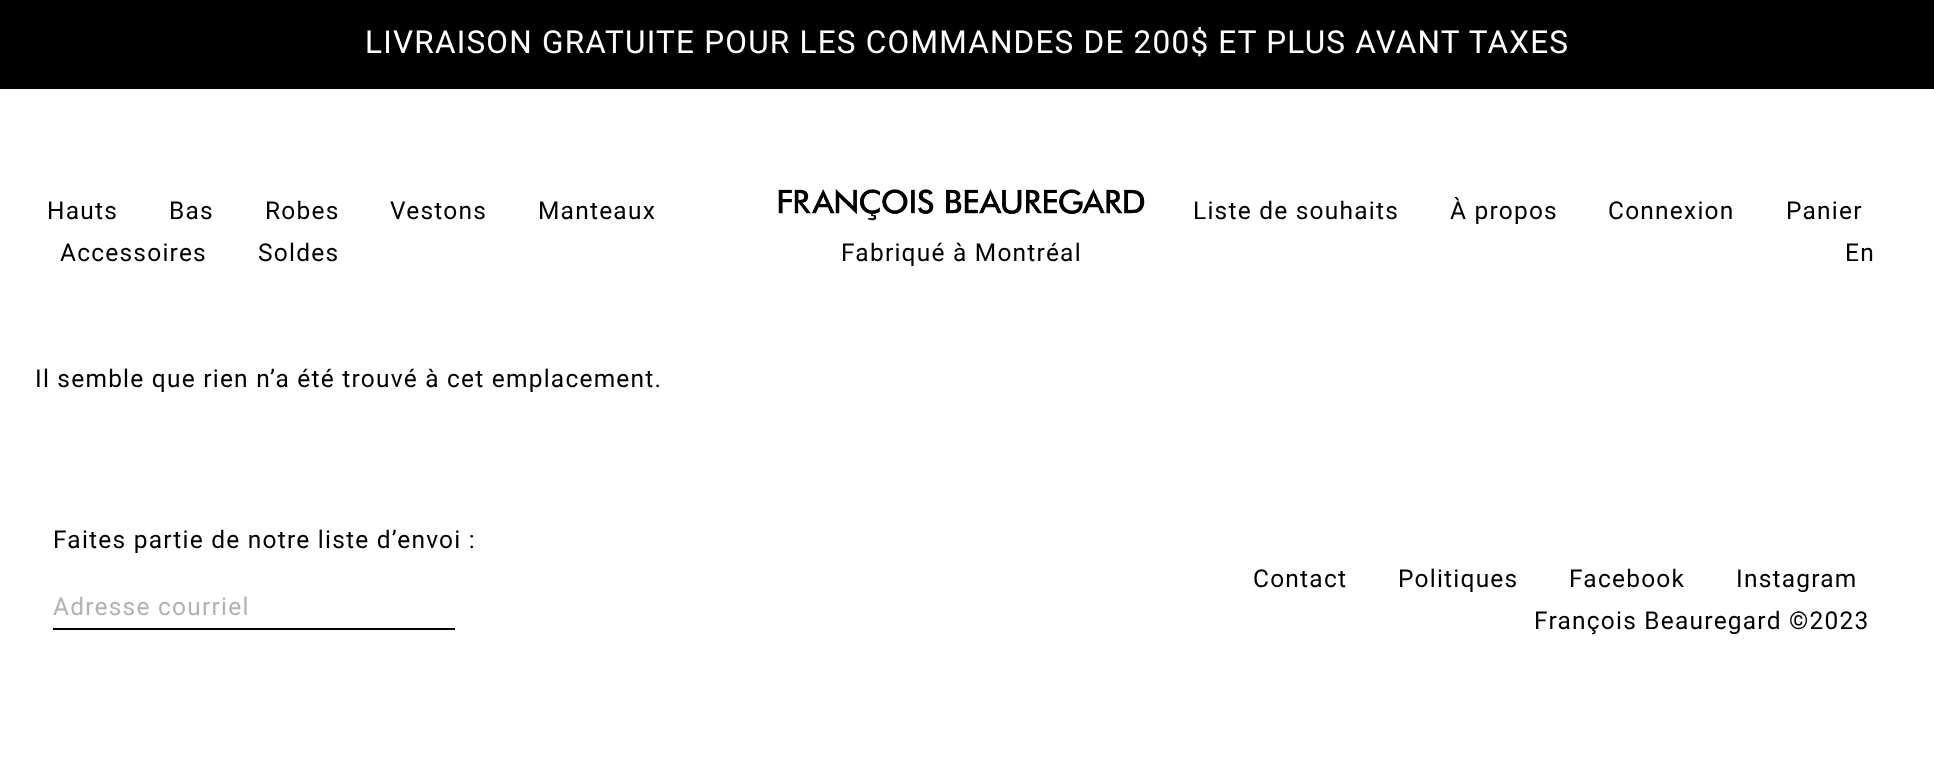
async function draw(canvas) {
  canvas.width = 1934
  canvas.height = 773
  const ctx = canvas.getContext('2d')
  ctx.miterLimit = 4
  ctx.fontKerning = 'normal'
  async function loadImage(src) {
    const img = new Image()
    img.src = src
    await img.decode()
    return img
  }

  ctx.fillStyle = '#fff'
  ctx.fillRect(0, 0, 1934, 773)
  ctx.fillStyle = '#000'
  ctx.fillRect(0, 0, 1934, 89)
  ctx.letterSpacing = '1.22px'
  ctx.font = '31.5px Roboto'
  ctx.fillStyle = '#fff'
  ctx.fillText('LIVRAISON GRATUITE POUR LES COMMANDES DE 200$ ET PLUS AVANT TAXES', 365, 53)
  ctx.font = '24.5px Roboto'
  ctx.fillStyle = '#000'
  ctx.fillText('Hauts', 47, 219)
  ctx.fillText('Bas', 169, 219)
  ctx.fillText('Robes', 265, 219)
  ctx.fillText('Vestons', 390, 219)
  ctx.fillText('Manteaux', 538, 219)
  ctx.fillText('Accessoires', 60, 261)
  ctx.fillText('Soldes', 258, 261)
  ctx.drawImage(await loadImage('image0.png'), 778, 189, 367, 32)
  ctx.fillText('Fabriqué à Montréal', 841, 261)
  ctx.fillText('Liste de souhaits', 1193, 219)
  ctx.fillText('À propos', 1450, 219)
  ctx.fillText('Connexion', 1608, 219)
  ctx.fillText('Panier', 1786, 219)
  ctx.fillText('En', 1845, 261)
  ctx.fillText('Il semble que rien n’a été trouvé à cet emplacement.', 35, 387)
  ctx.fillText('Faites partie de notre liste d’envoi :', 53, 548)
  ctx.fillRect(53, 628, 402, 2)
  ctx.fillStyle = '#b3b3b3'
  ctx.fillText('Adresse courriel', 53, 615)
  ctx.fillStyle = '#000'
  ctx.fillText('Contact', 1253, 587)
  ctx.fillText('Politiques', 1398, 587)
  ctx.fillText('Facebook', 1569, 587)
  ctx.fillText('Instagram', 1736, 587)
  ctx.fillText('François Beauregard ©2023', 1534, 629)
}

draw(document.querySelector('canvas'))
